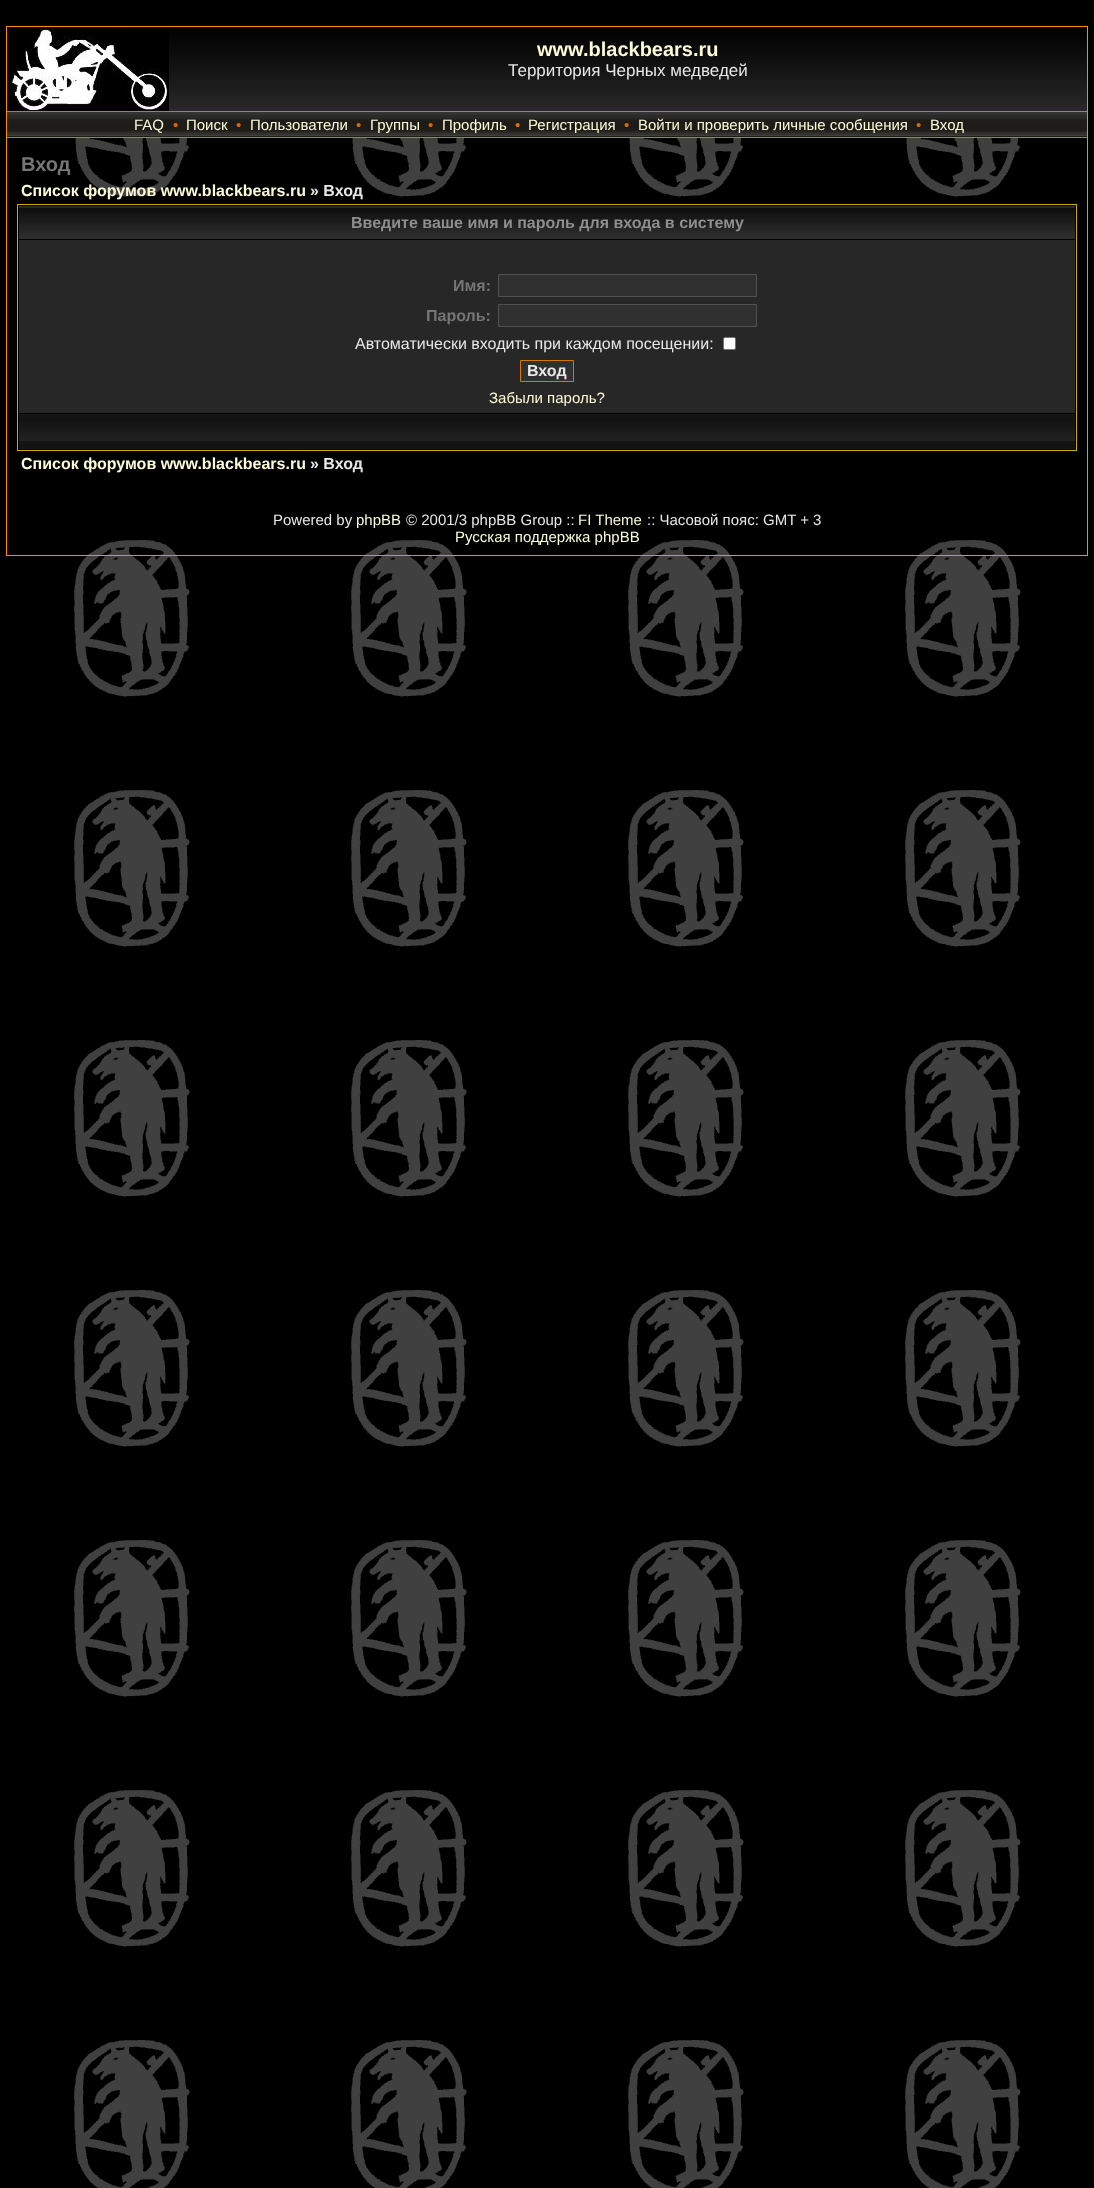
async function draw(canvas) {
  canvas.width = 1094
  canvas.height = 2188
  const ctx = canvas.getContext('2d')
  ctx.miterLimit = 4
  ctx.fontKerning = 'normal'
  async function loadImage(src) {
    const img = new Image()
    img.src = src
    await img.decode()
    return img
  }

  ctx.fillStyle = '#fff'
  ctx.fillRect(0, 0, 1094, 2188)
  ctx.drawImage(await loadImage('image0.png'), 0, 0, 1094, 2188)
  ctx.strokeStyle = '#ff8c00'
  ctx.strokeRect(6.5, 26.5, 1081, 529)
  ctx.drawImage(await loadImage('image1.png'), 169, 27, 918, 84)
  ctx.drawImage(await loadImage('image2.png'), 7, 27, 162, 84)
  ctx.font = 'bold 20px Liberation Sans'
  ctx.fillStyle = '#fcfbd7'
  ctx.fillText('www.blackbears.ru', 537, 56)
  ctx.font = '17px Liberation Sans'
  ctx.fillStyle = '#e7e7e7'
  ctx.fillText('Территория Черных медведей', 508, 76)
  ctx.fillStyle = '#1d1c19'
  ctx.fillRect(7, 136, 1080, 1)
  ctx.drawImage(await loadImage('image3.png'), 7, 112, 1080, 24)
  ctx.fillStyle = '#d77700'
  ctx.fillRect(7, 111, 1080, 1)
  ctx.fillRect(7, 137, 1080, 1)
  ctx.font = '15px Liberation Sans'
  ctx.fillStyle = '#fcfbd7'
  ctx.fillText('FAQ', 134, 130)
  ctx.fillStyle = '#dd6900'
  ctx.fillText('•', 173, 130)
  ctx.fillStyle = '#fcfbd7'
  ctx.fillText('Поиск', 186, 130)
  ctx.fillStyle = '#dd6900'
  ctx.fillText('•', 236, 130)
  ctx.fillStyle = '#fcfbd7'
  ctx.fillText('Пользователи', 250, 130)
  ctx.fillStyle = '#dd6900'
  ctx.fillText('•', 356, 130)
  ctx.fillStyle = '#fcfbd7'
  ctx.fillText('Группы', 370, 130)
  ctx.fillStyle = '#dd6900'
  ctx.fillText('•', 428, 130)
  ctx.fillStyle = '#fcfbd7'
  ctx.fillText('Профиль', 442, 130)
  ctx.fillStyle = '#dd6900'
  ctx.fillText('•', 515, 130)
  ctx.fillStyle = '#fcfbd7'
  ctx.fillText('Регистрация', 528, 130)
  ctx.fillStyle = '#dd6900'
  ctx.fillText('•', 624, 130)
  ctx.fillStyle = '#fcfbd7'
  ctx.fillText('Войти и проверить личные сообщения', 638, 130)
  ctx.fillStyle = '#dd6900'
  ctx.fillText('•', 916, 130)
  ctx.fillStyle = '#fcfbd7'
  ctx.fillText('Вход', 930, 130)
  ctx.font = 'bold 20px Liberation Sans'
  ctx.fillStyle = '#767676'
  ctx.fillText('Вход', 21, 171)
  ctx.font = 'bold 16px Liberation Sans'
  ctx.fillStyle = '#fcfbd7'
  ctx.fillText('Список форумов www.blackbears.ru', 21, 196)
  ctx.fillStyle = '#e7e7e7'
  ctx.fillText('» Вход', 310, 196)
  ctx.fillStyle = '#010101'
  ctx.fillRect(74, 290, 947, 157)
  ctx.strokeStyle = '#d2a900'
  ctx.strokeRect(17.5, 204.5, 1059, 246)
  ctx.drawImage(await loadImage('image4.png'), 19, 206, 1056, 33)
  ctx.fillStyle = '#8e8e8e'
  ctx.fillText('Введите ваше имя и пароль для входа в систему', 351, 228)
  ctx.fillStyle = '#272727'
  ctx.fillRect(19, 240, 1056, 173)
  ctx.fillStyle = '#767676'
  ctx.fillText('Имя:', 453, 291)
  ctx.fillStyle = '#303030'
  ctx.beginPath()
  ctx.rect(498.5, 274.5, 258, 22)
  ctx.fill()
  ctx.strokeStyle = '#555050'
  ctx.stroke()
  ctx.fillStyle = '#767676'
  ctx.fillText('Пароль:', 426, 321)
  ctx.fillStyle = '#303030'
  ctx.beginPath()
  ctx.rect(498.5, 304.5, 258, 22)
  ctx.fill()
  ctx.stroke()
  ctx.font = '16px Liberation Sans'
  ctx.fillStyle = '#e7e7e7'
  ctx.fillText('Автоматически входить при каждом посещении:', 355, 349)
  ctx.fillStyle = '#fff'
  ctx.beginPath()
  ctx.roundRect(723.5, 337.5, 12, 12, 1.5)
  ctx.fill()
  ctx.strokeStyle = '#767676'
  ctx.stroke()
  ctx.fillStyle = '#303030'
  ctx.beginPath()
  ctx.rect(520.5, 360.5, 53, 21)
  ctx.fill()
  ctx.strokeStyle = '#d77700'
  ctx.stroke()
  ctx.font = 'bold 16px Liberation Sans'
  ctx.fillStyle = '#e7e7e7'
  ctx.fillText('Вход', 527, 376)
  ctx.font = '15px Liberation Sans'
  ctx.fillStyle = '#fcfbd7'
  ctx.fillText('Забыли пароль?', 489, 403)
  ctx.fillStyle = '#191919'
  ctx.fillRect(19, 414, 1056, 1)
  ctx.drawImage(await loadImage('image5.png'), 19, 415, 1056, 34)
  ctx.font = 'bold 16px Liberation Sans'
  ctx.fillStyle = '#fcfbd7'
  ctx.fillText('Список форумов www.blackbears.ru', 21, 469)
  ctx.fillStyle = '#e7e7e7'
  ctx.fillText('» Вход', 310, 469)
  ctx.font = '15px Liberation Sans'
  ctx.fillText('Powered by', 273, 525)
  ctx.fillStyle = '#fcfbd7'
  ctx.fillText('phpBB', 356, 525)
  ctx.fillStyle = '#e7e7e7'
  ctx.fillText('© 2001/3 phpBB Group ::', 406, 525)
  ctx.fillStyle = '#fcfbd7'
  ctx.fillText('FI Theme', 578, 525)
  ctx.fillStyle = '#e7e7e7'
  ctx.fillText(':: Часовой пояс: GMT + 3', 647, 525)
  ctx.fillStyle = '#fcfbd7'
  ctx.fillText('Русская поддержка phpBB', 455, 542)
}

draw(document.querySelector('canvas'))
